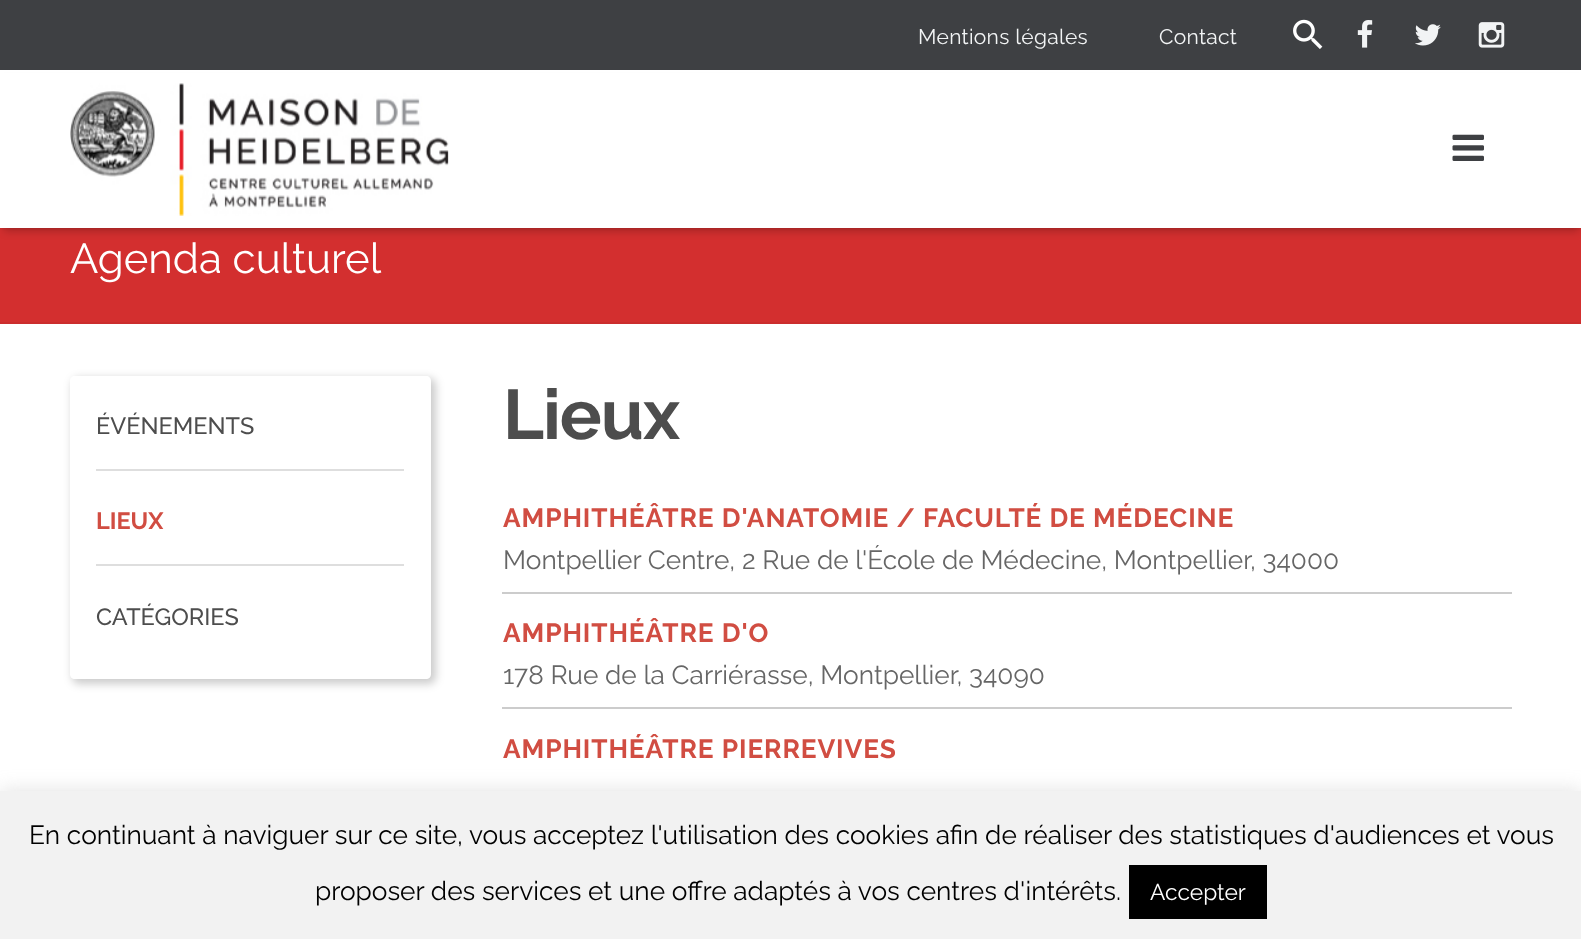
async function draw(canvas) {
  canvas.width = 1581
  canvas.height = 939
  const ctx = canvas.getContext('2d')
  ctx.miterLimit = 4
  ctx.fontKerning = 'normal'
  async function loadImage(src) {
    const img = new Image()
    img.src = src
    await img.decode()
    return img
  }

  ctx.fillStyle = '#fff'
  ctx.fillRect(0, 0, 1581, 939)
  ctx.fillStyle = '#d32f2f'
  ctx.fillRect(0, 228, 1581, 94)
  ctx.fillStyle = '#0000000d'
  ctx.filter = 'blur(1px)'
  ctx.beginPath()
  ctx.rect(2, 75, 1578, 154)
  ctx.fill()
  ctx.filter = 'none'
  ctx.fillStyle = '#3e4043'
  ctx.fillRect(0, 0, 1581, 70)
  ctx.fillStyle = '#00000038'
  ctx.filter = 'blur(4.5px)'
  ctx.beginPath()
  ctx.rect(4, 81, 1575, 150)
  ctx.fill()
  ctx.filter = 'none'
  ctx.fillStyle = '#fff'
  ctx.fillRect(0, 73, 1581, 155)
  ctx.drawImage(await loadImage('image0.png'), 1293, 19, 30, 30)
  ctx.drawImage(await loadImage('image1.png'), 70, 83, 379, 133)
  ctx.drawImage(await loadImage('image2.png'), 1452, 134, 32, 27)
  ctx.letterSpacing = '0.3px'
  ctx.font = '21px Raleway'
  ctx.fillStyle = '#f2f4f5'
  ctx.fillText('Mentions légales', 918, 44)
  ctx.fillText('Contact', 1159, 44)
  ctx.drawImage(await loadImage('image3.png'), 1357, 20, 16, 28)
  ctx.drawImage(await loadImage('image4.png'), 1415, 24, 26, 22)
  ctx.drawImage(await loadImage('image5.png'), 1478, 22, 27, 26)
  ctx.save()
  ctx.beginPath()
  ctx.rect(0, 0, 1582, 324)
  ctx.clip()
  ctx.fillStyle = '#cb2d2d'
  ctx.beginPath()
  ctx.moveTo(-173, -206)
  ctx.lineTo(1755, -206)
  ctx.lineTo(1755, 497)
  ctx.lineTo(-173, 497)
  ctx.closePath()
  ctx.moveTo(0, -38)
  ctx.lineTo(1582, -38)
  ctx.bezierCurveTo(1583, -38, 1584, -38, 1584, -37)
  ctx.lineTo(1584, 320)
  ctx.bezierCurveTo(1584, 321, 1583, 322, 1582, 322)
  ctx.lineTo(0, 322)
  ctx.bezierCurveTo(-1, 322, -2, 321, -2, 320)
  ctx.lineTo(-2, -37)
  ctx.bezierCurveTo(-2, -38, -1, -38, 0, -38)
  ctx.closePath()
  ctx.fill('evenodd')
  ctx.restore()
  ctx.letterSpacing = '0px'
  ctx.font = '42px Raleway'
  ctx.fillStyle = '#fff'
  ctx.fillText('Agenda culturel', 70, 273)
  ctx.save()
  ctx.beginPath()
  ctx.moveTo(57, 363)
  ctx.lineTo(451, 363)
  ctx.lineTo(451, 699)
  ctx.lineTo(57, 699)
  ctx.closePath()
  ctx.moveTo(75, 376)
  ctx.lineTo(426, 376)
  ctx.bezierCurveTo(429, 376, 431, 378, 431, 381)
  ctx.lineTo(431, 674)
  ctx.bezierCurveTo(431, 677, 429, 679, 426, 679)
  ctx.lineTo(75, 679)
  ctx.bezierCurveTo(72, 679, 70, 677, 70, 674)
  ctx.lineTo(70, 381)
  ctx.bezierCurveTo(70, 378, 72, 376, 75, 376)
  ctx.closePath()
  ctx.clip('evenodd')
  ctx.fillStyle = '#00000033'
  ctx.filter = 'blur(4.5px)'
  ctx.beginPath()
  ctx.roundRect(72, 378, 364, 306, 7)
  ctx.fill()
  ctx.filter = 'none'
  ctx.restore()
  ctx.fillStyle = '#dedede'
  ctx.fillRect(96, 469, 308, 2)
  ctx.font = '500 23.5px Raleway'
  ctx.fillStyle = '#4d4d4d'
  ctx.fillText('ÉVÉNEMENTS', 96, 434)
  ctx.fillStyle = '#dedede'
  ctx.fillRect(96, 564, 308, 2)
  ctx.font = 'bold 23.5px Raleway'
  ctx.fillStyle = '#d14d42'
  ctx.fillText('LIEUX', 96, 529)
  ctx.font = '500 23.5px Raleway'
  ctx.fillStyle = '#4d4d4d'
  ctx.fillText('CATÉGORIES', 96, 625)
  ctx.letterSpacing = '-1px'
  ctx.font = 'bold 70px Raleway'
  ctx.fillText('Lieux', 503, 439)
  ctx.fillStyle = '#ccc'
  ctx.fillRect(502, 592, 1010, 2)
  ctx.letterSpacing = '0.9px'
  ctx.font = 'bold 26.25px Raleway'
  ctx.fillStyle = '#d14d42'
  ctx.fillText('AMPHITHÉÂTRE D\'ANATOMIE / FACULTÉ DE MÉDECINE', 503, 527)
  ctx.letterSpacing = '0px'
  ctx.font = '26.25px Raleway'
  ctx.fillStyle = '#666'
  ctx.fillText('Montpellier Centre, 2 Rue de l\'École de Médecine, Montpellier, 34000', 503, 569)
  ctx.fillStyle = '#ccc'
  ctx.fillRect(502, 707, 1010, 2)
  ctx.letterSpacing = '0.9px'
  ctx.font = 'bold 26.25px Raleway'
  ctx.fillStyle = '#d14d42'
  ctx.fillText('AMPHITHÉÂTRE D\'O', 503, 642)
  ctx.letterSpacing = '0px'
  ctx.font = '26.25px Raleway'
  ctx.fillStyle = '#666'
  ctx.fillText('178 Rue de la Carriérasse, Montpellier, 34090', 503, 684)
  ctx.letterSpacing = '0.9px'
  ctx.font = 'bold 26.25px Raleway'
  ctx.fillStyle = '#d14d42'
  ctx.fillText('AMPHITHÉÂTRE PIERREVIVES', 503, 758)
  ctx.fillStyle = '#acabab4d'
  ctx.filter = 'blur(9px)'
  ctx.beginPath()
  ctx.rect(0, 789, 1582, 149)
  ctx.fill()
  ctx.filter = 'none'
  ctx.fillStyle = '#f2f2f2'
  ctx.fillRect(0, 791, 1581, 148)
  ctx.letterSpacing = '0px'
  ctx.font = '26.25px Raleway'
  ctx.fillStyle = '#000'
  ctx.fillText('En continuant à naviguer sur ce site, vous acceptez l\'utilisation des cookies afin de réaliser des statistiques d\'audiences et vous', 29, 844)
  ctx.fillText('proposer des services et une offre adaptés à vos centres d\'intérêts.', 315, 900)
  ctx.fillRect(1129, 865, 138, 54)
  ctx.font = '22.75px Raleway'
  ctx.fillStyle = '#fff'
  ctx.fillText('Accepter', 1150, 900)
}

draw(document.querySelector('canvas'))
